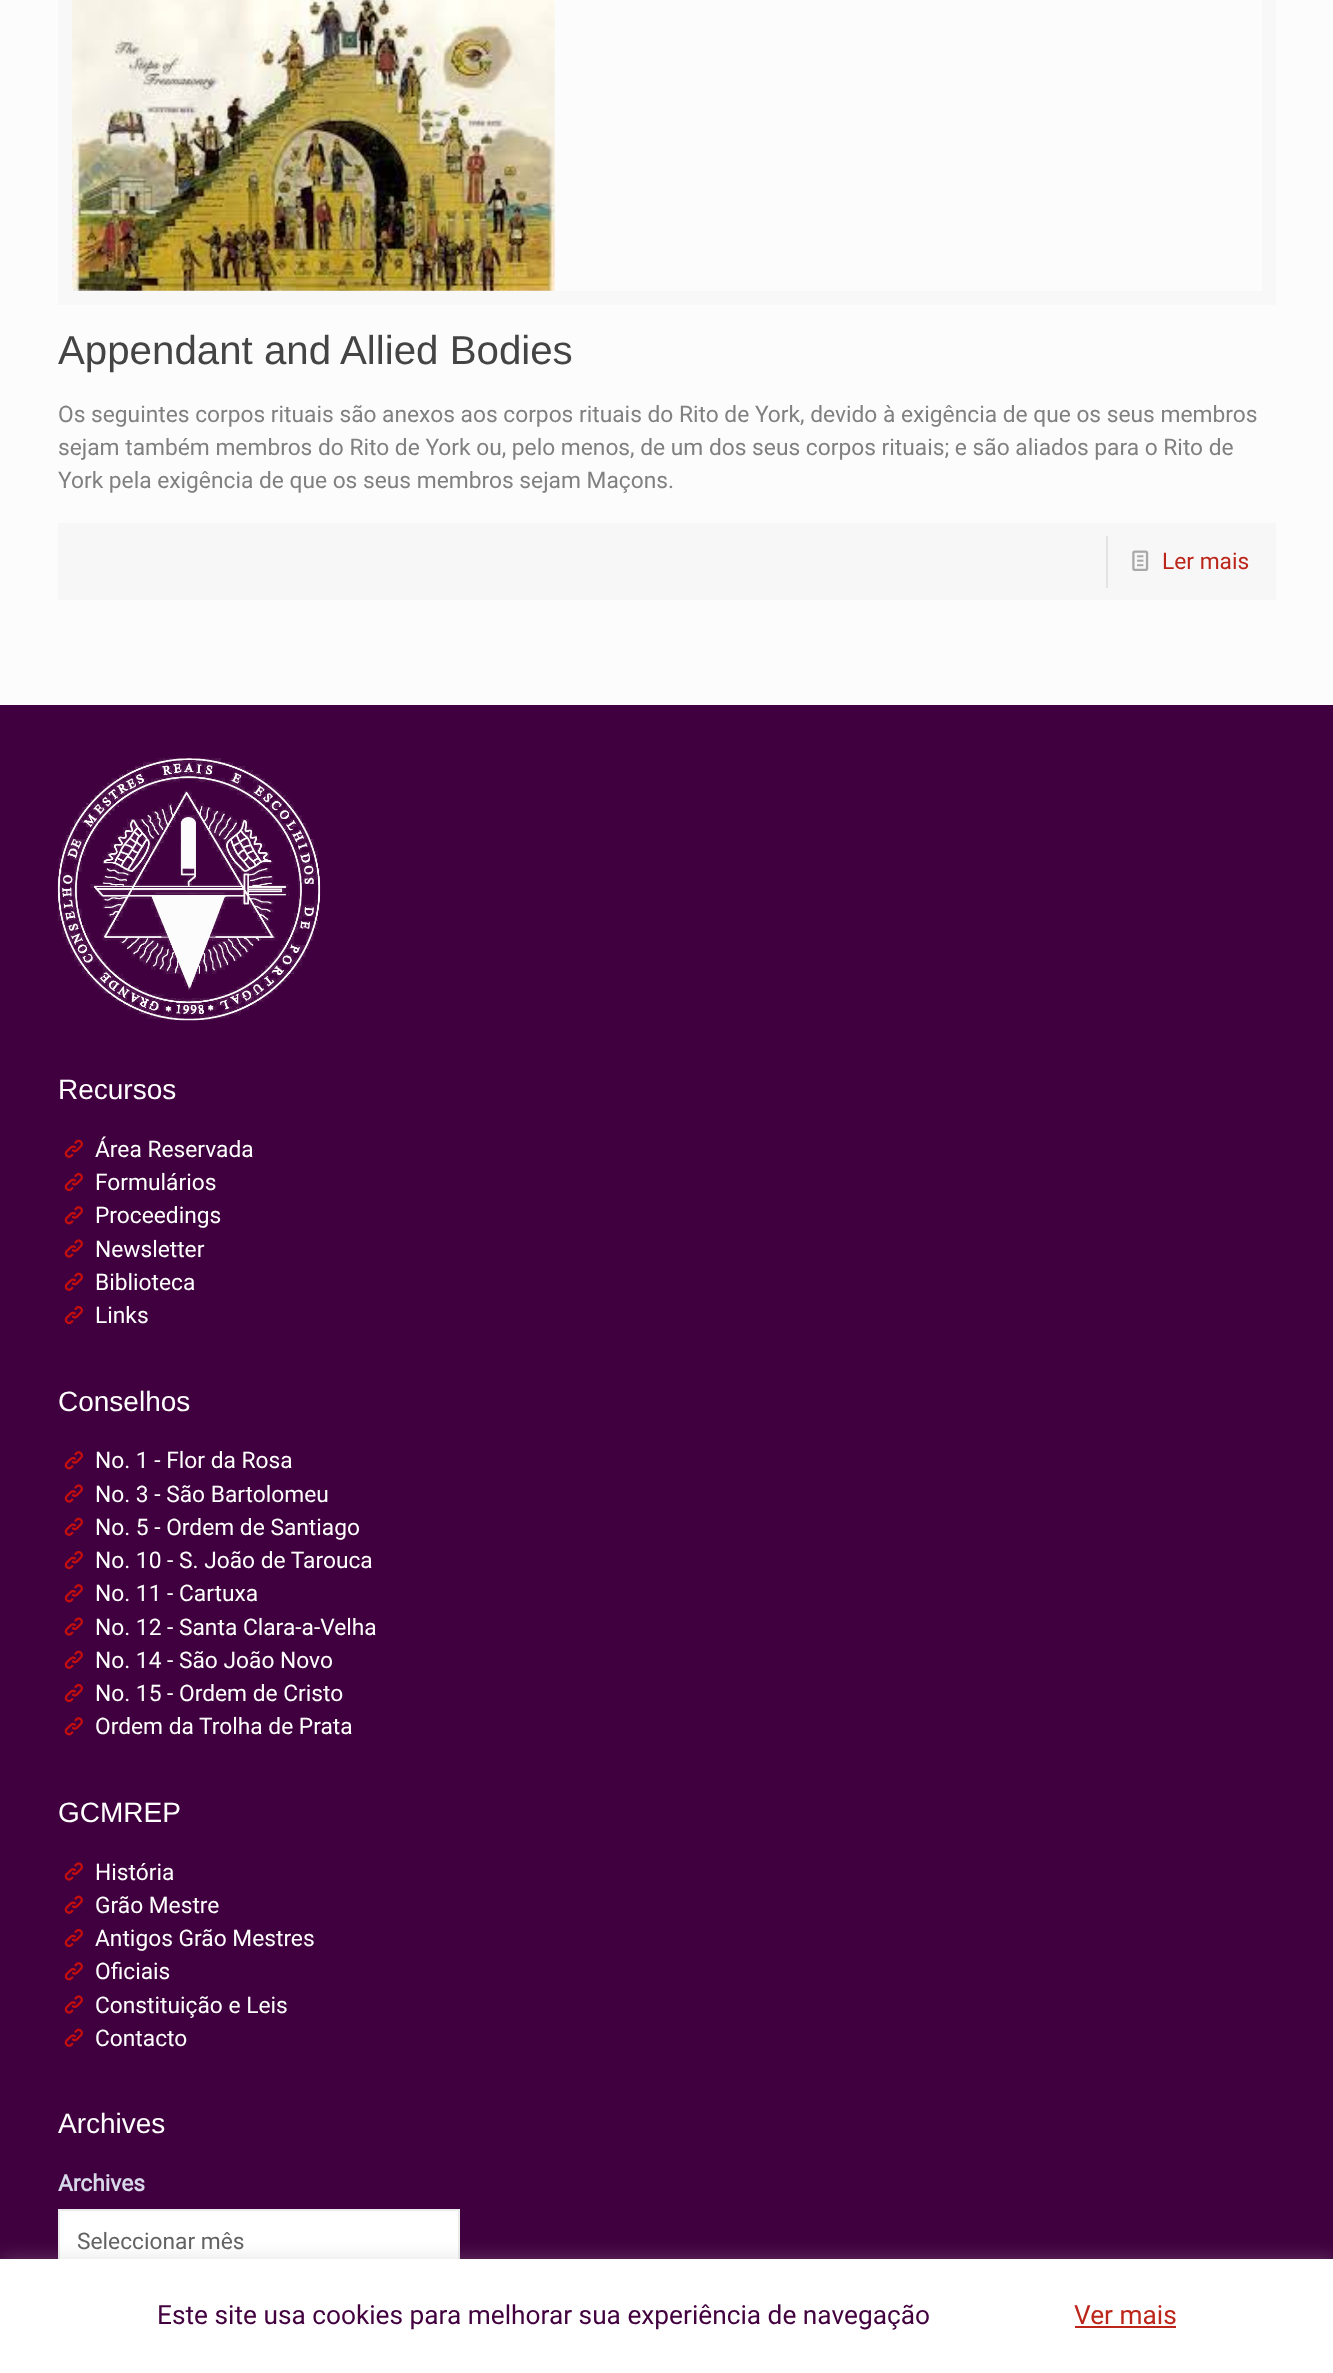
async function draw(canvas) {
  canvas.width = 1333
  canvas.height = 2373
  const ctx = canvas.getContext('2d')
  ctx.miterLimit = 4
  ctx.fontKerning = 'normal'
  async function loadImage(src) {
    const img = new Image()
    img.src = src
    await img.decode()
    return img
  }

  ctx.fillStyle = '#fcfcfc'
  ctx.fillRect(0, 0, 1333, 2373)
  ctx.strokeStyle = '#f8f8f8'
  ctx.lineWidth = 14
  ctx.strokeRect(65, -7, 1204, 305)
  ctx.drawImage(await loadImage('image0.png'), 72, 0, 483, 291)
  ctx.font = '40.25px Liberation Sans'
  ctx.fillStyle = '#444'
  ctx.fillText('Appendant and Allied Bodies', 58, 364)
  ctx.font = '22.75px Roboto'
  ctx.fillStyle = '#808080'
  ctx.fillText('Os seguintes corpos rituais são anexos aos corpos rituais do Rito de York, devido à exigência de que os seus membros', 58, 422)
  ctx.fillText('sejam também membros do Rito de York ou, pelo menos, de um dos seus corpos rituais; e são aliados para o Rito de', 58, 455)
  ctx.fillText('York pela exigência de que os seus membros sejam Maçons.', 58, 488)
  ctx.fillStyle = '#f7f7f7'
  ctx.fillRect(58, 523, 1218, 77)
  ctx.fillStyle = '#e3e3e3'
  ctx.fillRect(1106, 536, 2, 52)
  ctx.drawImage(await loadImage('image1.png'), 1132, 550, 17, 21)
  ctx.fillStyle = '#bc2519'
  ctx.fillText('Ler mais', 1162, 569)
  ctx.fillStyle = '#40003f'
  ctx.fillRect(0, 705, 1333, 1554)
  ctx.drawImage(await loadImage('image2.png'), 57, 758, 264, 263)
  ctx.font = '28px Liberation Sans'
  ctx.fillStyle = '#fff'
  ctx.fillText('Recursos', 58, 1099)
  ctx.drawImage(await loadImage('image3.png'), 64, 1139, 19, 19)
  ctx.font = '22.75px Roboto'
  ctx.fillText('Área Reservada', 95, 1157)
  ctx.drawImage(await loadImage('image4.png'), 64, 1172, 19, 20)
  ctx.fillText('Formulários', 95, 1190)
  ctx.drawImage(await loadImage('image5.png'), 64, 1206, 19, 19)
  ctx.fillText('Proceedings', 95, 1223)
  ctx.drawImage(await loadImage('image6.png'), 64, 1239, 19, 19)
  ctx.fillText('Newsletter', 95, 1257)
  ctx.drawImage(await loadImage('image3.png'), 64, 1272, 19, 19)
  ctx.fillText('Biblioteca', 95, 1290)
  ctx.drawImage(await loadImage('image4.png'), 64, 1305, 19, 20)
  ctx.fillText('Links', 95, 1323)
  ctx.font = '28px Liberation Sans'
  ctx.fillText('Conselhos', 58, 1411)
  ctx.drawImage(await loadImage('image5.png'), 64, 1451, 19, 19)
  ctx.font = '22.75px Roboto'
  ctx.fillText('No. 1 - Flor da Rosa', 95, 1468)
  ctx.drawImage(await loadImage('image6.png'), 64, 1484, 19, 19)
  ctx.fillText('No. 3 - São Bartolomeu', 95, 1502)
  ctx.drawImage(await loadImage('image3.png'), 64, 1517, 19, 19)
  ctx.fillText('No. 5 - Ordem de Santiago', 95, 1535)
  ctx.drawImage(await loadImage('image4.png'), 64, 1550, 19, 20)
  ctx.fillText('No. 10 - S. João de Tarouca', 95, 1568)
  ctx.drawImage(await loadImage('image5.png'), 64, 1584, 19, 19)
  ctx.fillText('No. 11 - Cartuxa', 95, 1601)
  ctx.drawImage(await loadImage('image6.png'), 64, 1617, 19, 19)
  ctx.fillText('No. 12 - Santa Clara-a-Velha', 95, 1635)
  ctx.drawImage(await loadImage('image3.png'), 64, 1650, 19, 19)
  ctx.fillText('No. 14 - São João Novo', 95, 1668)
  ctx.drawImage(await loadImage('image4.png'), 64, 1683, 19, 20)
  ctx.fillText('No. 15 - Ordem de Cristo', 95, 1701)
  ctx.drawImage(await loadImage('image5.png'), 64, 1717, 19, 19)
  ctx.fillText('Ordem da Trolha de Prata', 95, 1734)
  ctx.font = '28px Liberation Sans'
  ctx.fillText('GCMREP', 58, 1822)
  ctx.drawImage(await loadImage('image6.png'), 64, 1862, 19, 19)
  ctx.font = '22.75px Roboto'
  ctx.fillText('História', 95, 1880)
  ctx.drawImage(await loadImage('image3.png'), 64, 1895, 19, 19)
  ctx.fillText('Grão Mestre', 95, 1913)
  ctx.drawImage(await loadImage('image4.png'), 64, 1928, 19, 20)
  ctx.fillText('Antigos Grão Mestres', 95, 1946)
  ctx.drawImage(await loadImage('image5.png'), 64, 1962, 19, 19)
  ctx.fillText('Oficiais', 95, 1979)
  ctx.drawImage(await loadImage('image6.png'), 64, 1995, 19, 19)
  ctx.fillText('Constituição e Leis', 95, 2013)
  ctx.drawImage(await loadImage('image3.png'), 64, 2028, 19, 19)
  ctx.fillText('Contacto', 95, 2046)
  ctx.font = '28px Liberation Sans'
  ctx.fillText('Archives', 58, 2133)
  ctx.font = 'bold 22.75px Roboto'
  ctx.fillStyle = '#d7d8ea'
  ctx.fillText('Archives', 58, 2191)
  ctx.fillStyle = '#fff'
  ctx.fillRect(60, 2211, 398, 48)
  ctx.strokeStyle = '#ebebeb'
  ctx.lineWidth = 2
  ctx.strokeRect(59, 2210, 400, 62)
  ctx.font = '22.75px Roboto'
  ctx.fillStyle = '#626262'
  ctx.fillText('Seleccionar mês', 77, 2249)
  ctx.fillStyle = '#acabab4d'
  ctx.filter = 'blur(9px)'
  ctx.beginPath()
  ctx.rect(0, 2258, 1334, 113)
  ctx.fill()
  ctx.filter = 'none'
  ctx.fillStyle = '#fff'
  ctx.fillRect(0, 2259, 1333, 114)
  ctx.font = '26.25px Roboto'
  ctx.fillStyle = '#42003e'
  ctx.fillText('Este site usa cookies para melhorar sua experiência de navegação', 157, 2324)
  ctx.fillStyle = '#bc2519'
  ctx.fillText('Ver mais', 1074, 2324)
  ctx.fillRect(1075, 2326, 101, 2)
}

draw(document.querySelector('canvas'))
